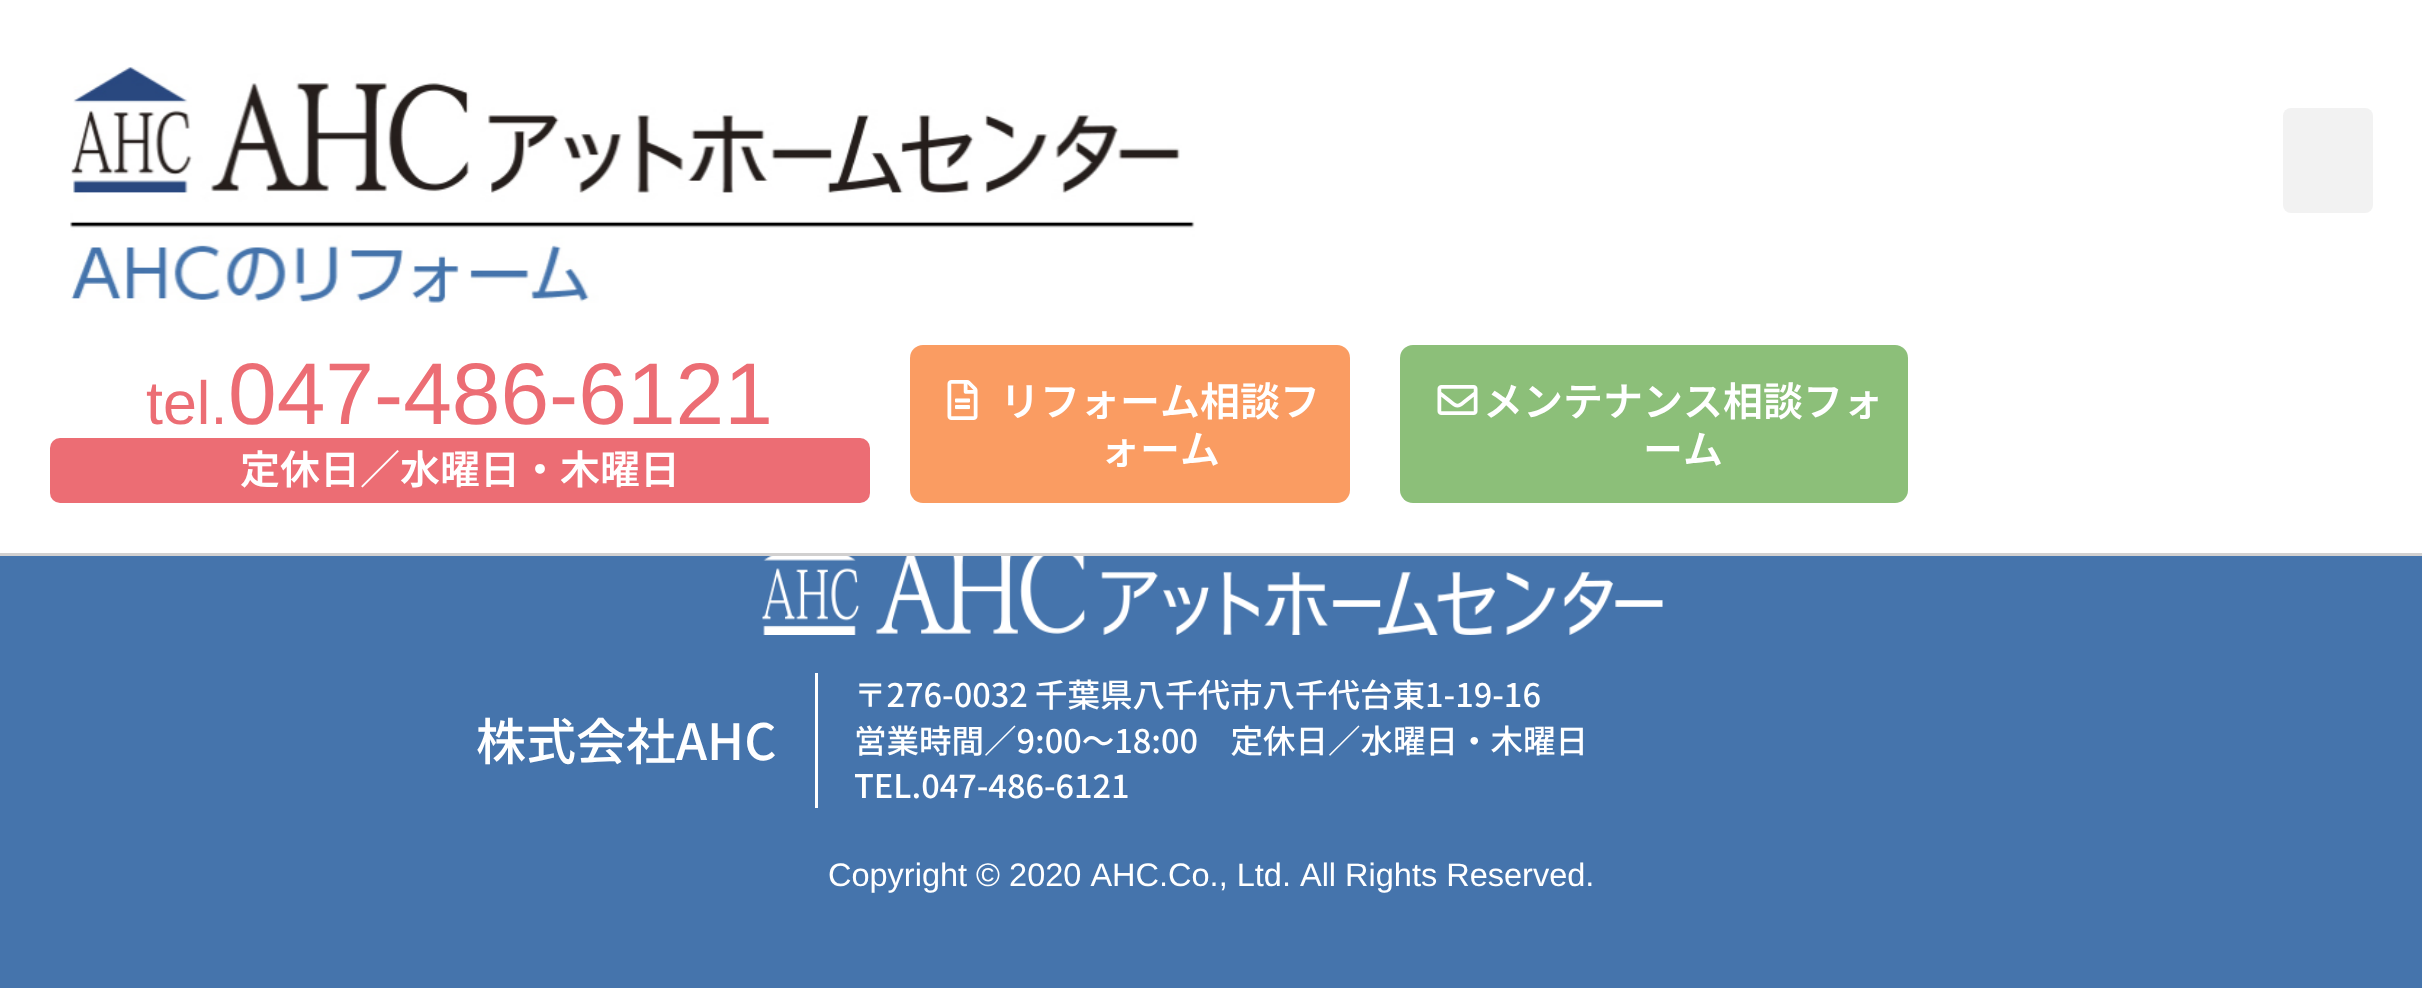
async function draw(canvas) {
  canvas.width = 2422
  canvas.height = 988
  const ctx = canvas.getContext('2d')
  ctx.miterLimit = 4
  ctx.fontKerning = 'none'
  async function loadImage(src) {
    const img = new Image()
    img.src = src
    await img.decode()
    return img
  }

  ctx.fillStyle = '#4574ac'
  ctx.fillRect(0, 0, 2422, 988)
  ctx.fillStyle = '#fff'
  ctx.fillRect(0, 0, 2422, 553)
  ctx.fillStyle = '#d1d0d0'
  ctx.fillRect(0, 553, 2422, 3)
  ctx.drawImage(await loadImage('image0.png'), 70, 67, 1125, 236)
  ctx.fillStyle = '#f2f2f2'
  ctx.beginPath()
  ctx.roundRect(2283, 108, 90, 105, 8)
  ctx.fill()
  ctx.font = '61px Liberation Sans'
  ctx.fillStyle = '#ec6d74'
  ctx.fillText('tel.', 146, 424)
  ctx.font = '87.5px Liberation Sans'
  ctx.fillText('047-486-6121', 228, 424)
  ctx.beginPath()
  ctx.roundRect(50, 438, 820, 65, 10)
  ctx.fill()
  ctx.font = '600 40px Noto Sans JP'
  ctx.fillStyle = '#fff'
  ctx.fillText('定休日／水曜日・木曜日', 240, 484)
  ctx.fillStyle = '#fa9c62'
  ctx.beginPath()
  ctx.roundRect(910, 345, 440, 158, 13)
  ctx.fill()
  ctx.drawImage(await loadImage('image1.png'), 947, 380, 31, 40)
  ctx.fillStyle = '#fff'
  ctx.fillText('リフォーム相談フ', 1000, 416)
  ctx.fillText('ォーム', 1100, 464)
  ctx.fillStyle = '#8cbf79'
  ctx.beginPath()
  ctx.roundRect(1400, 345, 508, 158, 13)
  ctx.fill()
  ctx.drawImage(await loadImage('image2.png'), 1437, 385, 41, 30)
  ctx.fillStyle = '#fff'
  ctx.fillText('メンテナンス相談フォ', 1483, 416)
  ctx.fillText('ーム', 1643, 464)
  ctx.drawImage(await loadImage('image3.png'), 762, 556, 901, 79)
  ctx.fillRect(815, 673, 3, 135)
  ctx.font = '500 50px Noto Sans JP'
  ctx.fillText('株式会社AHC', 476, 760)
  ctx.font = '500 32.5px Noto Sans JP'
  ctx.fillText('〒276-0032 千葉県八千代市八千代台東1-19-16', 854, 707)
  ctx.fillText('営業時間／9:00～18:00　定休日／水曜日・木曜日', 854, 753)
  ctx.fillText('TEL.047-486-6121', 854, 798)
  ctx.font = '32.5px Liberation Sans'
  ctx.fillText('Copyright © 2020 AHC.Co., Ltd. All Rights Reserved.', 828, 886)
}

draw(document.querySelector('canvas'))
